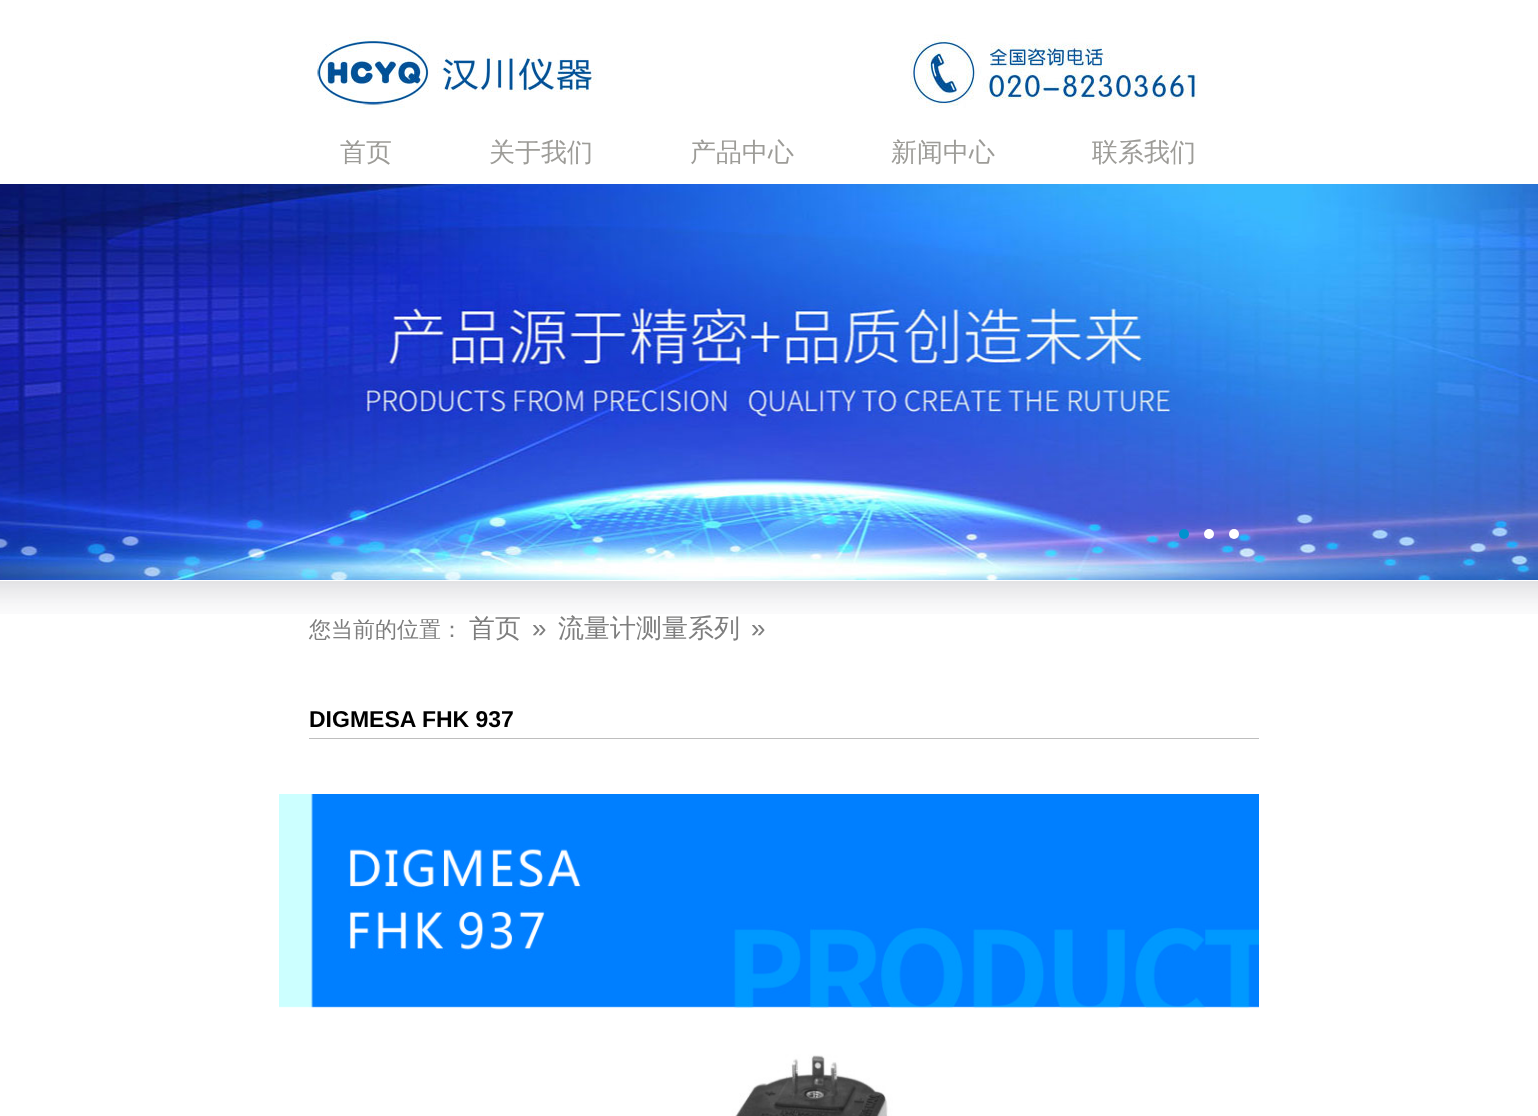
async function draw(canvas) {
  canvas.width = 1538
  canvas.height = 1116
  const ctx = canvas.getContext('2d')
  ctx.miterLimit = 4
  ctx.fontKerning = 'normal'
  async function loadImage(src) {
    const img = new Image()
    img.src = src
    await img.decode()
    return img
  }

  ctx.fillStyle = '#fff'
  ctx.fillRect(0, 0, 1538, 1116)
  ctx.drawImage(await loadImage('image0.png'), 317, 36, 280, 72)
  ctx.drawImage(await loadImage('image1.png'), 910, 34, 288, 74)
  ctx.font = '500 26px WenQuanYi Zen Hei'
  ctx.fillStyle = '#9d9c98'
  ctx.fillText('首页', 340, 161)
  ctx.fillText('关于我们', 489, 161)
  ctx.fillText('产品中心', 690, 161)
  ctx.fillText('新闻中心', 891, 161)
  ctx.fillText('联系我们', 1092, 161)
  ctx.drawImage(await loadImage('image2.png'), 0, 184, 1538, 396)
  ctx.fillStyle = '#0092ce'
  ctx.beginPath()
  ctx.arc(1184, 534, 5, 0, 2 * Math.PI)
  ctx.fill()
  ctx.fillStyle = '#fff'
  ctx.beginPath()
  ctx.arc(1209, 534, 5, 0, 2 * Math.PI)
  ctx.fill()
  ctx.beginPath()
  ctx.arc(1234, 534, 5, 0, 2 * Math.PI)
  ctx.fill()
  ctx.drawImage(await loadImage('image3.png'), 0, 581, 1538, 33)
  ctx.font = '500 22px WenQuanYi Zen Hei'
  ctx.fillStyle = '#7e7e7e'
  ctx.fillText('您当前的位置：', 309, 637)
  ctx.font = '500 26px WenQuanYi Zen Hei'
  ctx.fillText('首页', 469, 637)
  ctx.font = '26px Liberation Sans'
  ctx.fillText('»', 532, 637)
  ctx.font = '500 26px WenQuanYi Zen Hei'
  ctx.fillText('流量计测量系列', 558, 637)
  ctx.font = '26px Liberation Sans'
  ctx.fillText('»', 751, 637)
  ctx.fillStyle = '#bebebe'
  ctx.fillRect(309, 738, 950, 1)
  ctx.font = 'bold 23px Liberation Sans'
  ctx.fillStyle = '#000'
  ctx.fillText('DIGMESA FHK 937', 309, 727)
  ctx.drawImage(await loadImage('image4.png'), 279, 794, 980, 322)
}

draw(document.querySelector('canvas'))
